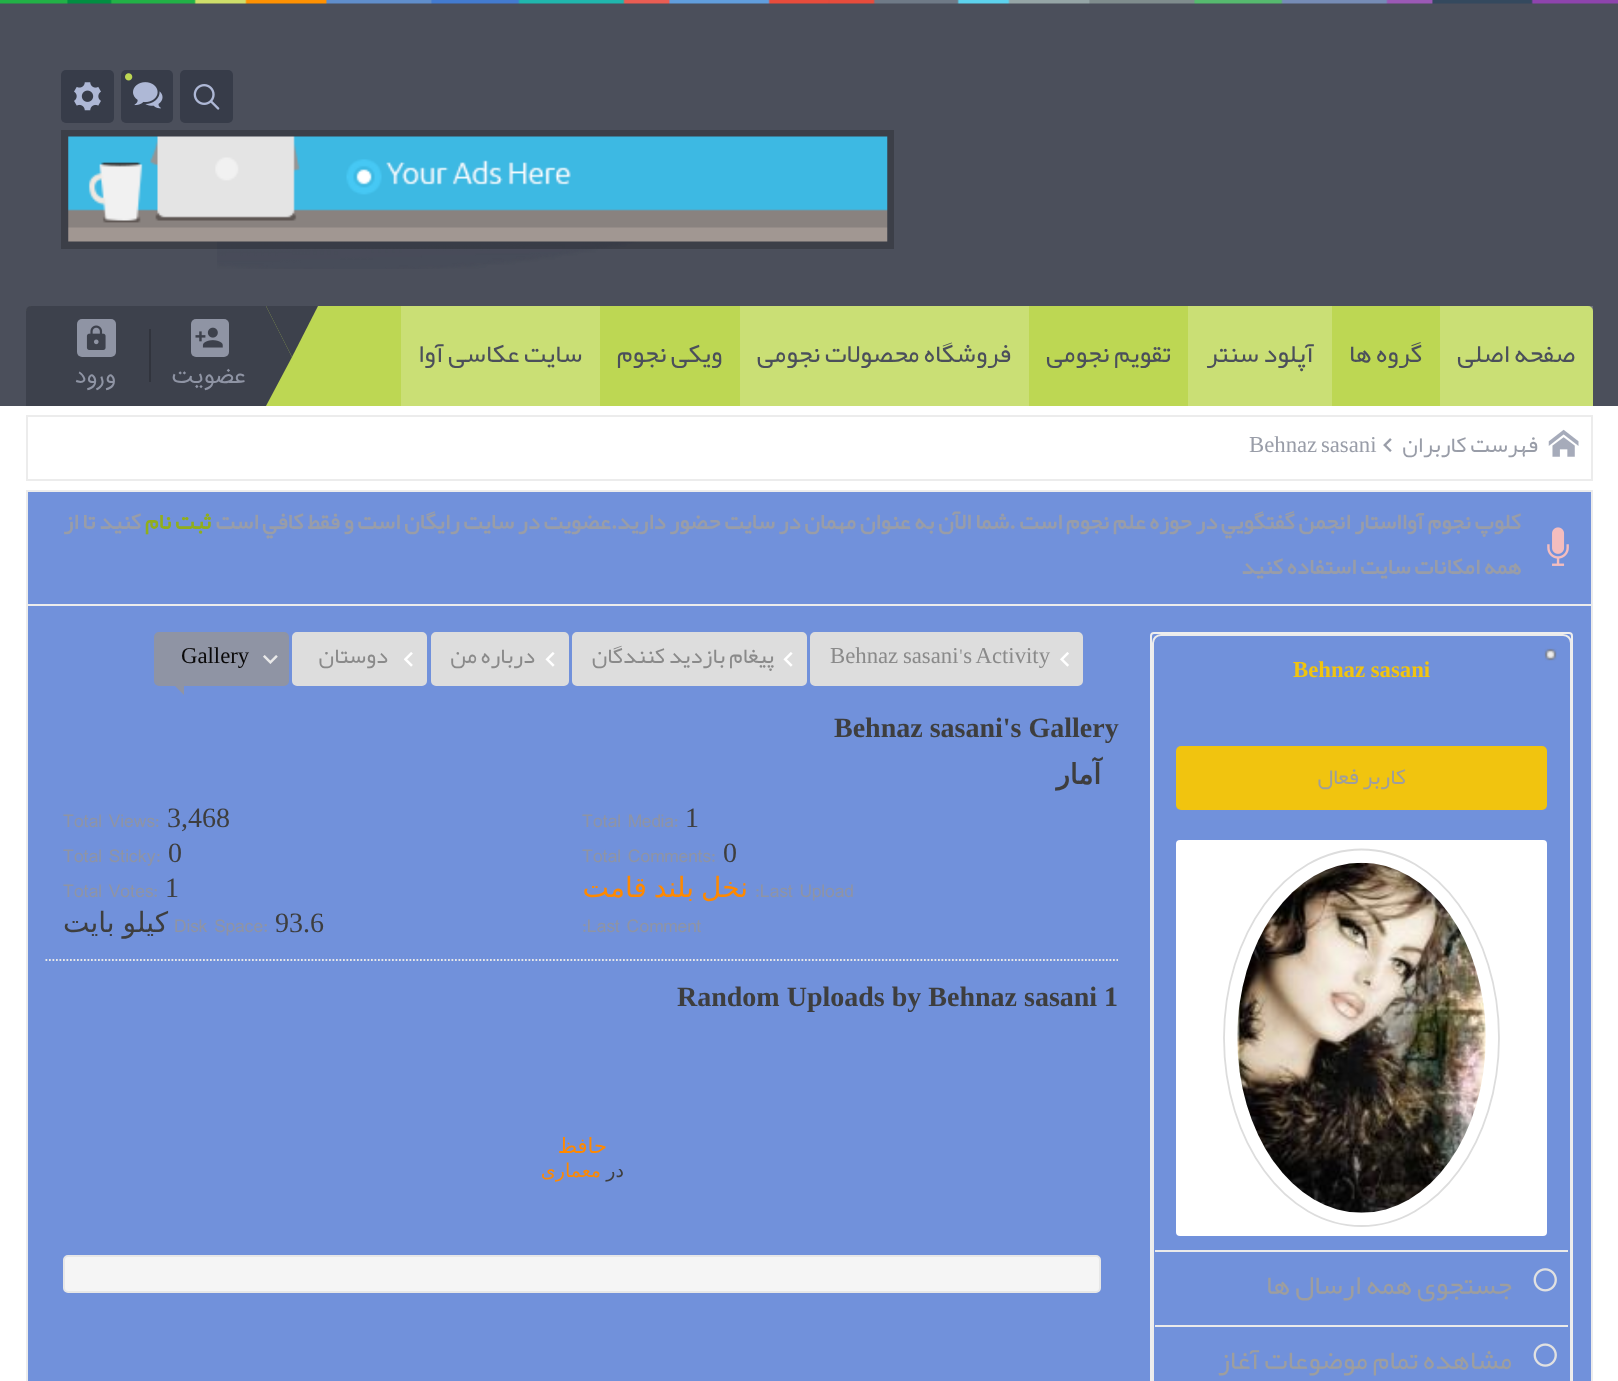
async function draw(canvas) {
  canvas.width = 1618
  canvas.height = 1381
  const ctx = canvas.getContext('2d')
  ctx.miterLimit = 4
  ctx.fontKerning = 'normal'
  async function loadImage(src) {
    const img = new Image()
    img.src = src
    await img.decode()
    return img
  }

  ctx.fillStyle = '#fff'
  ctx.fillRect(0, 0, 1618, 1381)
  ctx.fillStyle = '#4b4f5b'
  ctx.fillRect(0, 3, 1618, 403)
  ctx.drawImage(await loadImage('image0.png'), 0, 0, 1618, 4)
  ctx.drawImage(await loadImage('image1.png'), 217, 0, 613, 269)
  ctx.fillStyle = '#373c49'
  ctx.beginPath()
  ctx.roundRect(180, 70, 53, 53, 5)
  ctx.fill()
  ctx.drawImage(await loadImage('image2.png'), 193, 84, 27, 26)
  ctx.beginPath()
  ctx.roundRect(121, 70, 52, 53, 5)
  ctx.fill()
  ctx.drawImage(await loadImage('image3.png'), 133, 82, 30, 27)
  ctx.drawImage(await loadImage('image4.png'), 125, 73, 8, 8)
  ctx.beginPath()
  ctx.roundRect(61, 70, 53, 53, 5)
  ctx.fill()
  ctx.drawImage(await loadImage('image5.png'), 74, 82, 27, 29)
  ctx.fillStyle = '#00000033'
  ctx.fillRect(61, 130, 833, 119)
  ctx.drawImage(await loadImage('image6.png'), 68, 136, 820, 106)
  ctx.fillStyle = '#bdd753'
  ctx.beginPath()
  ctx.roundRect(26, 306, 1567, 100, [7, 5, 0, 0])
  ctx.fill()
  ctx.fillStyle = '#ffffff33'
  ctx.fillRect(1440, 306, 153, 100)
  ctx.direction = 'rtl'
  ctx.font = '26.25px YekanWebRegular'
  ctx.fillStyle = '#4b4f5b'
  ctx.fillText('صفحه اصلی', 1575, 362)
  ctx.fillText('گروه ها', 1422, 362)
  ctx.fillStyle = '#cadf75'
  ctx.fillRect(1188, 306, 144, 100)
  ctx.fillStyle = '#4b4f5b'
  ctx.fillText('آپلود سنتر', 1314, 362)
  ctx.fillText('تقویم نجومی', 1171, 362)
  ctx.fillStyle = '#cadf75'
  ctx.fillRect(740, 306, 289, 100)
  ctx.fillStyle = '#4b4f5b'
  ctx.fillText('فروشگاه محصولات نجومی', 1011, 362)
  ctx.fillText('ویکی نجوم', 722, 362)
  ctx.fillStyle = '#cadf75'
  ctx.fillRect(401, 306, 199, 100)
  ctx.fillStyle = '#4b4f5b'
  ctx.fillText('سایت عکاسی آوا', 582, 362)
  ctx.fillStyle = '#3d414c'
  ctx.beginPath()
  ctx.roundRect(26, 306, 240, 100, [5, 0, 0, 0])
  ctx.fill()
  ctx.beginPath()
  ctx.moveTo(266, 306)
  ctx.lineTo(318, 306)
  ctx.lineTo(292, 357)
  ctx.closePath()
  ctx.fill()
  ctx.beginPath()
  ctx.moveTo(266, 406)
  ctx.lineTo(266, 306)
  ctx.lineTo(292, 357)
  ctx.closePath()
  ctx.fill()
  ctx.fillStyle = '#8f94a4'
  ctx.beginPath()
  ctx.roundRect(191, 319, 38, 38, 5)
  ctx.fill()
  ctx.drawImage(await loadImage('image7.png'), 195, 327, 28, 21)
  ctx.font = '21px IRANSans'
  ctx.fillText('عضويت', 246, 383)
  ctx.fillStyle = '#31343d'
  ctx.fillRect(149, 329, 2, 53)
  ctx.fillStyle = '#8f94a4'
  ctx.beginPath()
  ctx.roundRect(77, 319, 39, 38, 5)
  ctx.fill()
  ctx.drawImage(await loadImage('image8.png'), 86, 325, 20, 25)
  ctx.fillText('ورود', 116, 383)
  ctx.strokeStyle = '#ececec'
  ctx.lineWidth = 2
  ctx.strokeRect(27, 416, 1565, 64)
  ctx.drawImage(await loadImage('image9.png'), 1548, 429, 31, 28)
  ctx.font = '22.75px YekanWebRegular'
  ctx.fillStyle = '#999da8'
  ctx.fillText('فهرست کاربران', 1538, 452)
  ctx.drawImage(await loadImage('image10.png'), 1383, 438, 9, 14)
  ctx.wordSpacing = '-2px'
  ctx.direction = 'ltr'
  ctx.font = '22.75px Liberation Serif'
  ctx.fillText('Behnaz sasani', 1249, 452)
  ctx.fillStyle = '#7191db'
  ctx.beginPath()
  ctx.rect(27, 491, 1565, 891)
  ctx.fill()
  ctx.stroke()
  ctx.fillStyle = '#ececec'
  ctx.fillRect(28, 604, 1563, 2)
  ctx.wordSpacing = '0px'
  ctx.direction = 'rtl'
  ctx.font = 'bold 22.75px YekanWebRegular'
  ctx.fillStyle = '#999da8'
  ctx.fillText('كلوپ نجوم آوااستار انجمن گفتگويي در حوزه علم نجوم است .شما الآن به عنوان مهمان در سايت حضور داريد.عضويت در سايت رايگان است و فقط كافي است', 1521, 529)
  ctx.fillStyle = '#91ae1b'
  ctx.fillText('ثبت نام', 211, 529)
  ctx.fillStyle = '#999da8'
  ctx.fillText('كنيد تا از', 141, 529)
  ctx.drawImage(await loadImage('image11.png'), 1547, 527, 22, 39)
  ctx.fillText('همه امكانات سايت استفاده كنيد', 1521, 574)
  ctx.beginPath()
  ctx.roundRect(1151, 633, 421, 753, 3)
  ctx.strokeStyle = '#eee'
  ctx.stroke()
  ctx.beginPath()
  ctx.moveTo(1161, 635)
  ctx.lineTo(1563, 635)
  ctx.bezierCurveTo(1567.5, 635, 1571, 638.5, 1571, 643)
  ctx.lineTo(1571, 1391)
  ctx.lineTo(1153, 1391)
  ctx.lineTo(1153, 643)
  ctx.bezierCurveTo(1153, 638.5, 1156.5, 635, 1161, 635)
  ctx.closePath()
  ctx.strokeStyle = '#ececec'
  ctx.stroke()
  ctx.drawImage(await loadImage('image12.png'), 1544, 648, 13, 13)
  ctx.direction = 'ltr'
  ctx.font = 'bold 22.75px Liberation Serif'
  ctx.fillStyle = '#f1c40f'
  ctx.fillText('Behnaz sasani', 1293, 677)
  ctx.beginPath()
  ctx.roundRect(1176, 746, 371, 64, 5)
  ctx.fill()
  ctx.direction = 'rtl'
  ctx.font = '22.75px YekanWebRegular'
  ctx.fillStyle = '#9e9e9e'
  ctx.fillText('کاربر فعال', 1406, 784)
  ctx.fillStyle = '#fff'
  ctx.beginPath()
  ctx.roundRect(1176, 840, 371, 396, 4)
  ctx.fill()
  ctx.beginPath()
  ctx.moveTo(1361.5, 849.5)
  ctx.bezierCurveTo(1437.5, 849.5, 1499, 934, 1499, 1038)
  ctx.bezierCurveTo(1499, 1141.5, 1437.5, 1226, 1361.5, 1226)
  ctx.bezierCurveTo(1285.5, 1226, 1224, 1141.5, 1224, 1038)
  ctx.bezierCurveTo(1224, 934, 1285.5, 849.5, 1361.5, 849.5)
  ctx.closePath()
  ctx.strokeStyle = '#ddd'
  ctx.lineWidth = 1.8
  ctx.stroke()
  ctx.drawImage(await loadImage('image13.png'), 1237, 862, 249, 351)
  ctx.fillStyle = '#eaeaea'
  ctx.fillRect(1155, 1250, 413, 2)
  ctx.fillRect(1155, 1325, 413, 2)
  ctx.drawImage(await loadImage('image14.png'), 1533, 1268, 24, 24)
  ctx.font = '28px YekanWebRegular'
  ctx.fillStyle = '#9e9e9e'
  ctx.fillText('جستجوی همه ارسال ها', 1512, 1294)
  ctx.drawImage(await loadImage('image15.png'), 1533, 1343, 24, 24)
  ctx.fillText('مشاهده تمام موضوعات آغاز', 1512, 1369)
  ctx.fillStyle = '#ddd'
  ctx.beginPath()
  ctx.roundRect(811, 633, 271, 52, 4)
  ctx.fill()
  ctx.lineWidth = 2
  ctx.stroke()
  ctx.wordSpacing = '-1px'
  ctx.direction = 'ltr'
  ctx.font = '22.75px Liberation Serif'
  ctx.fillStyle = '#8a8a8a'
  ctx.fillText('Behnaz sasani s Activity', 830, 663)
  ctx.drawImage(await loadImage('image16.png'), 1060, 652, 9, 15)
  ctx.wordSpacing = '0px'
  ctx.font = '22.75px YekanWebRegular'
  ctx.fillText('\'', 958, 663)
  ctx.fillStyle = '#ddd'
  ctx.beginPath()
  ctx.roundRect(573, 633, 233, 52, 4)
  ctx.fill()
  ctx.stroke()
  ctx.drawImage(await loadImage('image17.png'), 783, 652, 10, 15)
  ctx.direction = 'rtl'
  ctx.fillStyle = '#8a8a8a'
  ctx.fillText('پیغام بازدید کنندگان', 774, 663)
  ctx.fillStyle = '#ddd'
  ctx.beginPath()
  ctx.roundRect(432, 633, 136, 52, 4)
  ctx.fill()
  ctx.stroke()
  ctx.drawImage(await loadImage('image17.png'), 545, 652, 10, 15)
  ctx.fillStyle = '#8a8a8a'
  ctx.fillText('درباره من', 535, 663)
  ctx.fillStyle = '#ddd'
  ctx.beginPath()
  ctx.roundRect(293, 633, 133, 52, 4)
  ctx.fill()
  ctx.stroke()
  ctx.drawImage(await loadImage('image18.png'), 404, 652, 9, 15)
  ctx.fillStyle = '#8a8a8a'
  ctx.fillText('دوستان', 388, 663)
  ctx.fillStyle = '#8f94a4'
  ctx.beginPath()
  ctx.roundRect(155, 633, 133, 52, 4)
  ctx.fill()
  ctx.strokeStyle = '#8f94a4'
  ctx.stroke()
  ctx.drawImage(await loadImage('image19.png'), 263, 655, 15, 9)
  ctx.direction = 'ltr'
  ctx.font = '22.75px Liberation Serif'
  ctx.fillStyle = '#090808'
  ctx.fillText('Gallery', 181, 663)
  ctx.fillStyle = '#8f94a4'
  ctx.beginPath()
  ctx.moveTo(173, 684)
  ctx.lineTo(184, 684)
  ctx.lineTo(184, 695)
  ctx.closePath()
  ctx.fill()
  ctx.font = 'bold 28px Liberation Serif'
  ctx.fillStyle = '#3e3e3e'
  ctx.fillText('Behnaz sasani\'s Gallery', 834, 737)
  ctx.beginPath()
  ctx.moveTo(45.5, 960)
  ctx.lineTo(1118, 960)
  ctx.strokeStyle = '#e9e9e9'
  ctx.lineWidth = 1.8
  ctx.setLineDash([1.75, 1.75])
  ctx.stroke()
  ctx.direction = 'rtl'
  ctx.font = 'bold 28px DejaVu Sans'
  ctx.fillText('آمار', 1101, 784)
  ctx.direction = 'ltr'
  ctx.font = '28px Liberation Serif'
  ctx.fillText('1', 685, 827)
  ctx.font = '17.5px IRANSans'
  ctx.fillStyle = '#8f94a4'
  ctx.fillText('Total Media:', 582, 827)
  ctx.font = '28px Liberation Serif'
  ctx.fillStyle = '#3e3e3e'
  ctx.fillText('0', 723, 862)
  ctx.font = '17.5px IRANSans'
  ctx.fillStyle = '#8f94a4'
  ctx.fillText('Total Comments:', 582, 862)
  ctx.fillText(':Last Upload', 755, 897)
  ctx.wordSpacing = '-2px'
  ctx.direction = 'rtl'
  ctx.font = '28px DejaVu Sans'
  ctx.fillStyle = '#ff8900'
  ctx.fillText('نخل بلند قامت', 748, 897)
  ctx.wordSpacing = '0px'
  ctx.direction = 'ltr'
  ctx.font = '17.5px IRANSans'
  ctx.fillStyle = '#8f94a4'
  ctx.fillText(':Last Comment', 582, 932)
  ctx.font = '28px Liberation Serif'
  ctx.fillStyle = '#3e3e3e'
  ctx.fillText('3,468', 167, 827)
  ctx.font = '17.5px IRANSans'
  ctx.fillStyle = '#8f94a4'
  ctx.fillText('Total Views:', 63, 827)
  ctx.font = '28px Liberation Serif'
  ctx.fillStyle = '#3e3e3e'
  ctx.fillText('0', 168, 862)
  ctx.font = '17.5px IRANSans'
  ctx.fillStyle = '#8f94a4'
  ctx.fillText('Total Sticky:', 63, 862)
  ctx.font = '28px Liberation Serif'
  ctx.fillStyle = '#3e3e3e'
  ctx.fillText('1', 165, 897)
  ctx.font = '17.5px IRANSans'
  ctx.fillStyle = '#8f94a4'
  ctx.fillText('Total Votes:', 63, 897)
  ctx.font = '28px Liberation Serif'
  ctx.fillStyle = '#3e3e3e'
  ctx.fillText('93.6', 275, 932)
  ctx.font = '17.5px IRANSans'
  ctx.fillStyle = '#8f94a4'
  ctx.fillText('Disk Space:', 174, 932)
  ctx.wordSpacing = '-1px'
  ctx.direction = 'rtl'
  ctx.font = '28px DejaVu Sans'
  ctx.fillStyle = '#3e3e3e'
  ctx.fillText('کیلو بایت', 168, 932)
  ctx.wordSpacing = '0px'
  ctx.direction = 'ltr'
  ctx.font = 'bold 28px Liberation Serif'
  ctx.fillText('Random Uploads by Behnaz sasani 1', 677, 1006)
  ctx.direction = 'rtl'
  ctx.font = '21px DejaVu Sans'
  ctx.fillStyle = '#ff8900'
  ctx.fillText('حافظ', 607, 1153)
  ctx.font = '19px DejaVu Sans'
  ctx.fillStyle = '#3e3e3e'
  ctx.fillText('در', 624, 1177)
  ctx.fillStyle = '#ff8900'
  ctx.fillText('معماری', 601, 1177)
  ctx.fillStyle = '#f5f5f5'
  ctx.beginPath()
  ctx.roundRect(64, 1256, 1036, 36, 4)
  ctx.fill()
  ctx.strokeStyle = '#e7e7e7'
  ctx.lineWidth = 2
  ctx.setLineDash([])
  ctx.stroke()
}

draw(document.querySelector('canvas'))
